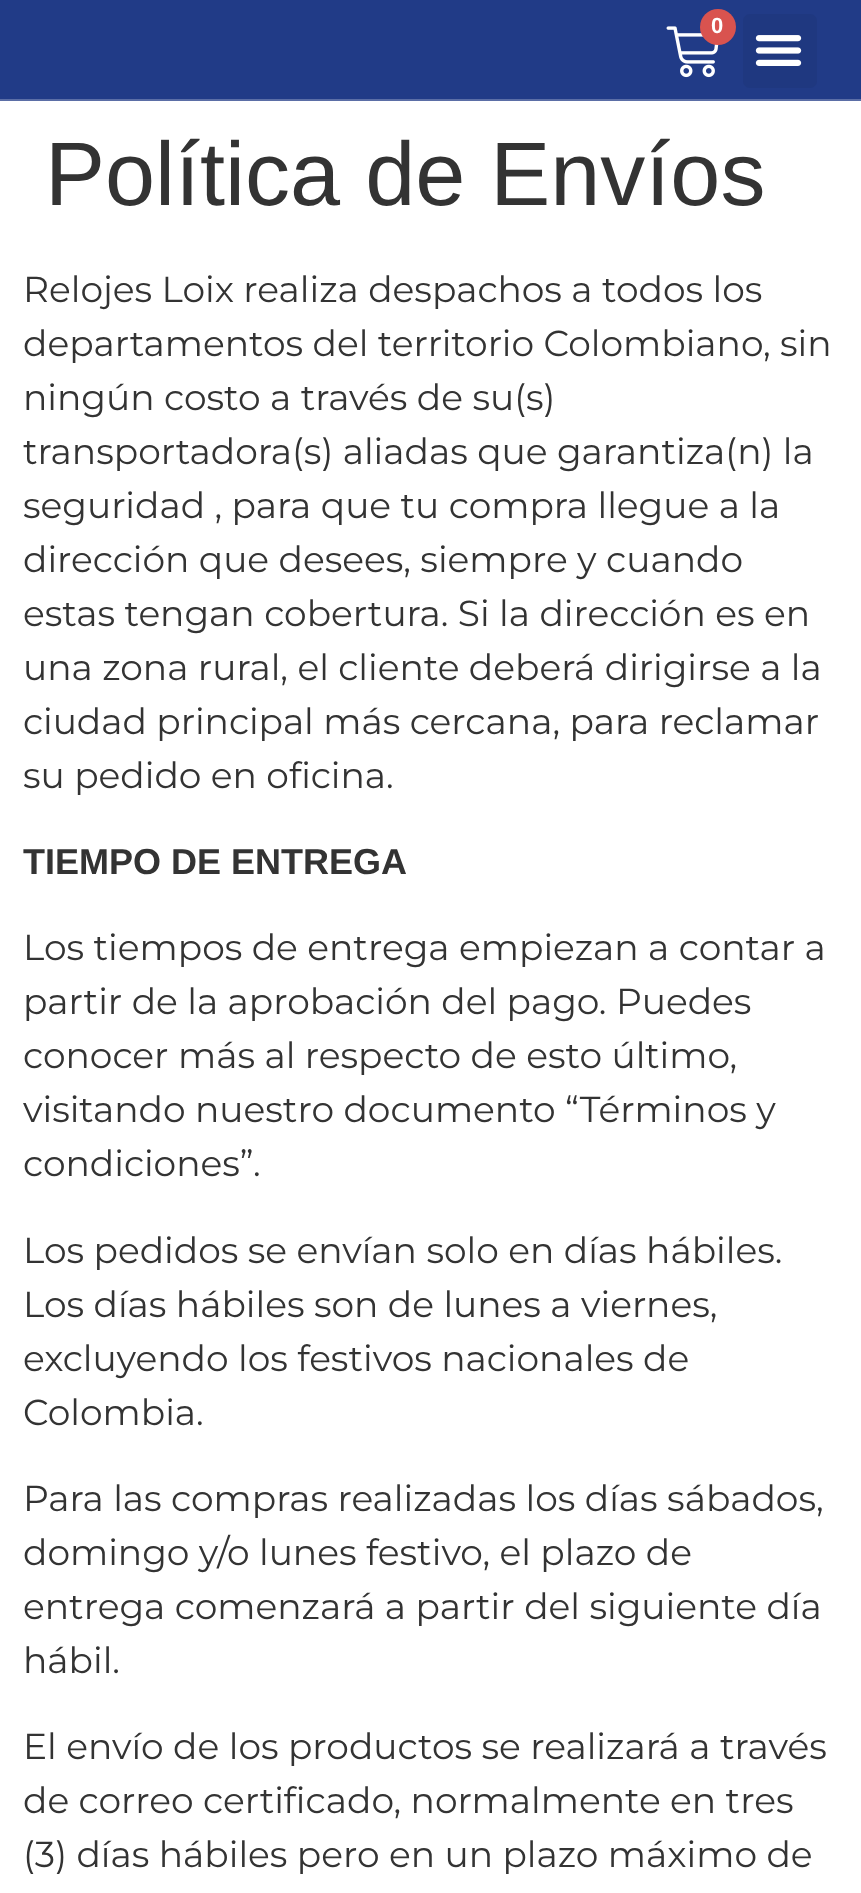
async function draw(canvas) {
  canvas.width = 861
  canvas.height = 1893
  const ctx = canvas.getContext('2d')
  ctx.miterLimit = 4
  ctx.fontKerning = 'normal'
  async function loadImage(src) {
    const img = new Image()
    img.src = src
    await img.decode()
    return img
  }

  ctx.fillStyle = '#fff'
  ctx.fillRect(0, 0, 861, 1893)
  ctx.fillStyle = '#213b87'
  ctx.fillRect(0, 0, 861, 99)
  ctx.fillStyle = '#5b6ea6'
  ctx.fillRect(0, 99, 861, 2)
  ctx.drawImage(await loadImage('image0.png'), 666, 26, 53, 52)
  ctx.fillStyle = '#d9534f'
  ctx.beginPath()
  ctx.arc(718, 27, 18, 0, 2 * Math.PI)
  ctx.fill()
  ctx.font = 'bold 22px Liberation Sans'
  ctx.fillStyle = '#fff'
  ctx.fillText('0', 711, 33)
  ctx.fillStyle = '#1f3880'
  ctx.beginPath()
  ctx.roundRect(743, 14, 74, 74, 7)
  ctx.fill()
  ctx.drawImage(await loadImage('image1.png'), 755, 35, 47, 31)
  ctx.font = '90px Liberation Sans'
  ctx.fillStyle = '#333'
  ctx.fillText('Política de Envíos', 45, 205)
  ctx.font = '36px Montserrat'
  ctx.fillText('Relojes Loix realiza despachos a todos los', 23, 302)
  ctx.fillText('departamentos del territorio Colombiano, sin', 23, 356)
  ctx.fillText('ningún costo a través de su(s)', 23, 410)
  ctx.fillText('transportadora(s) aliadas que garantiza(n) la', 23, 464)
  ctx.fillText('seguridad , para que tu compra llegue a la', 23, 518)
  ctx.fillText('dirección que desees, siempre y cuando', 23, 572)
  ctx.fillText('estas tengan cobertura. Si la dirección es en', 23, 626)
  ctx.fillText('una zona rural, el cliente deberá dirigirse a la', 23, 680)
  ctx.fillText('ciudad principal más cercana, para reclamar', 23, 734)
  ctx.fillText('su pedido en oficina.', 23, 788)
  ctx.font = 'bold 36px Liberation Sans'
  ctx.fillText('TIEMPO DE ENTREGA', 23, 874)
  ctx.font = '36px Montserrat'
  ctx.fillText('Los tiempos de entrega empiezan a contar a', 23, 960)
  ctx.fillText('partir de la aprobación del pago. Puedes', 23, 1014)
  ctx.fillText('conocer más al respecto de esto último,', 23, 1068)
  ctx.fillText('visitando nuestro documento “Términos y', 23, 1122)
  ctx.fillText('condiciones”.', 23, 1176)
  ctx.fillText('Los pedidos se envían solo en días hábiles.', 23, 1263)
  ctx.fillText('Los días hábiles son de lunes a viernes,', 23, 1317)
  ctx.fillText('excluyendo los festivos nacionales de', 23, 1371)
  ctx.fillText('Colombia.', 23, 1425)
  ctx.fillText('Para las compras realizadas los días sábados,', 23, 1511)
  ctx.fillText('domingo y/o lunes festivo, el plazo de', 23, 1565)
  ctx.fillText('entrega comenzará a partir del siguiente día', 23, 1619)
  ctx.fillText('hábil.', 23, 1673)
  ctx.fillText('El envío de los productos se realizará a través', 23, 1759)
  ctx.fillText('de correo certificado, normalmente en tres', 23, 1813)
  ctx.fillText('(3) días hábiles pero en un plazo máximo de', 23, 1867)
}

draw(document.querySelector('canvas'))
